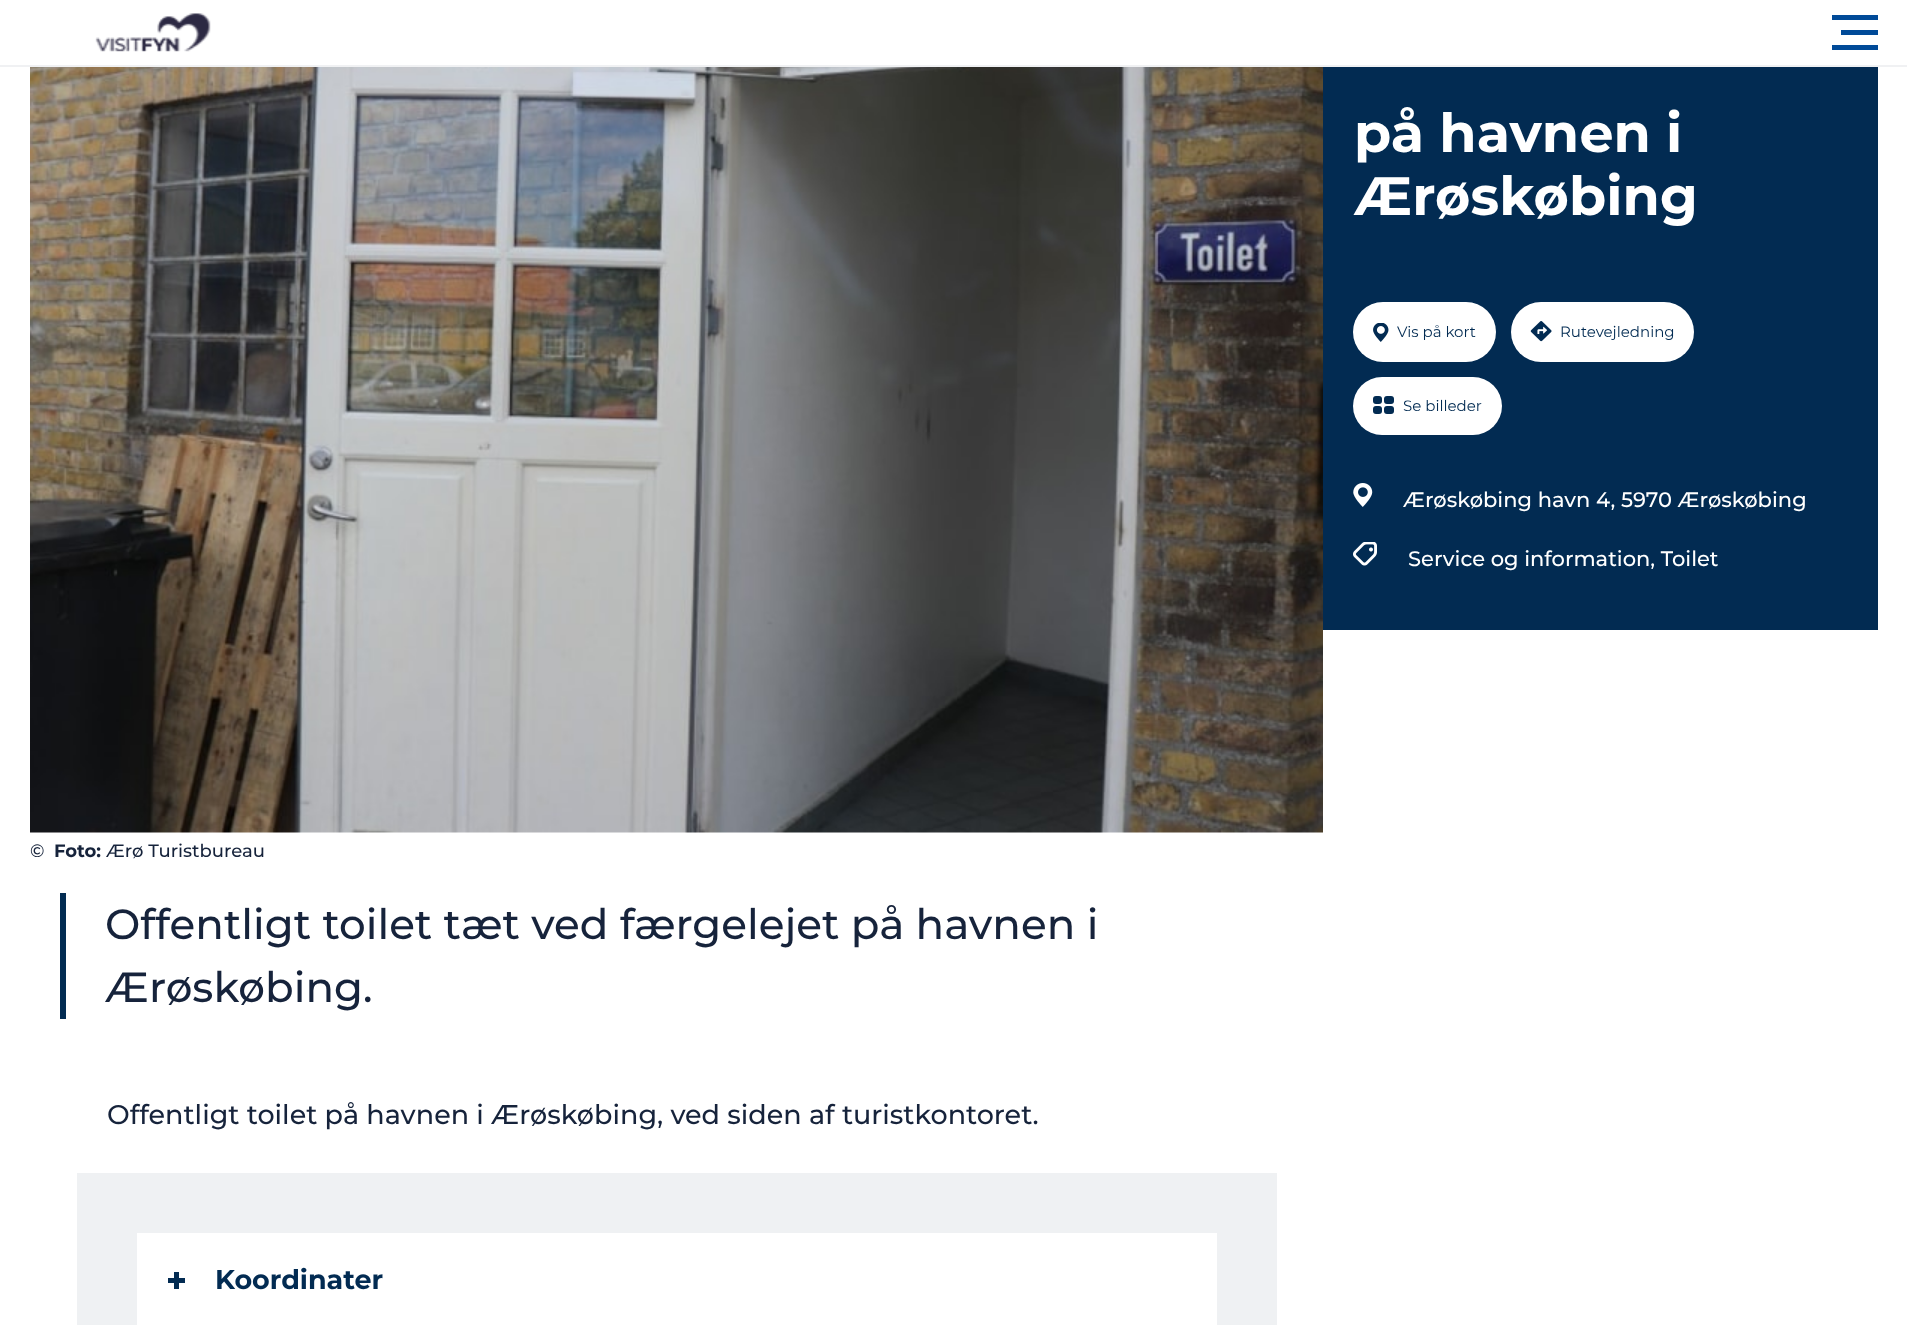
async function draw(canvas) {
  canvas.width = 1907
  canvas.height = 1325
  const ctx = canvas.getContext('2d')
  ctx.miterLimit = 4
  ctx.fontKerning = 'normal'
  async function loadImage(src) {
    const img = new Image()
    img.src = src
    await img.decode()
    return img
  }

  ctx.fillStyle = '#fff'
  ctx.fillRect(0, 0, 1907, 1325)
  ctx.fillStyle = '#f0f1f3'
  ctx.fillRect(0, 65, 1907, 2)
  ctx.drawImage(await loadImage('image0.png'), 95, 13, 116, 39)
  ctx.fillStyle = '#004a98'
  ctx.fillRect(1832, 15, 46, 5)
  ctx.fillRect(1841, 30, 37, 5)
  ctx.fillRect(1832, 45, 46, 5)
  ctx.fillStyle = '#022b52'
  ctx.fillRect(1323, 67, 555, 563)
  ctx.font = 'bold 54px Montserrat'
  ctx.fillStyle = '#fff'
  ctx.fillText('på havnen i', 1354, 152)
  ctx.fillText('Ærøskøbing', 1354, 215)
  ctx.beginPath()
  ctx.roundRect(1353, 302, 143, 60, 30)
  ctx.fill()
  ctx.drawImage(await loadImage('image1.png'), 1373, 323, 16, 19)
  ctx.font = '15px Montserrat'
  ctx.fillStyle = '#022b52'
  ctx.fillText('Vis på kort', 1397, 337)
  ctx.fillStyle = '#fff'
  ctx.beginPath()
  ctx.roundRect(1511, 302, 183, 60, 30)
  ctx.fill()
  ctx.drawImage(await loadImage('image2.png'), 1530, 321, 22, 21)
  ctx.fillStyle = '#022b52'
  ctx.fillText('Rutevejledning', 1560, 337)
  ctx.fillStyle = '#fff'
  ctx.beginPath()
  ctx.roundRect(1353, 377, 149, 58, 29)
  ctx.fill()
  ctx.fillStyle = '#022b52'
  ctx.beginPath()
  ctx.roundRect(1384, 396, 10, 8, 3)
  ctx.fill()
  ctx.beginPath()
  ctx.roundRect(1384, 406, 10, 8, 3)
  ctx.fill()
  ctx.beginPath()
  ctx.roundRect(1373, 396, 9, 8, 3)
  ctx.fill()
  ctx.beginPath()
  ctx.roundRect(1373, 406, 9, 8, 3)
  ctx.fill()
  ctx.fillText('Se billeder', 1403, 411)
  ctx.drawImage(await loadImage('image3.png'), 1353, 483, 20, 24)
  ctx.font = '500 21px Montserrat'
  ctx.fillStyle = '#fff'
  ctx.fillText('Ærøskøbing havn 4, 5970 Ærøskøbing', 1403, 507)
  ctx.drawImage(await loadImage('image4.png'), 1353, 542, 24, 24)
  ctx.fillText('Service og information, Toilet', 1408, 566)
  ctx.drawImage(await loadImage('image5.png'), 30, 67, 1293, 766)
  ctx.font = '500 18px Montserrat'
  ctx.fillStyle = '#16233b'
  ctx.fillText('©', 30, 857)
  ctx.font = 'bold 18px Montserrat'
  ctx.fillText('Foto:', 54, 857)
  ctx.font = '500 18px Montserrat'
  ctx.fillText('Ærø Turistbureau', 106, 857)
  ctx.fillStyle = '#022b52'
  ctx.fillRect(60, 893, 6, 126)
  ctx.font = '500 42px Montserrat'
  ctx.fillStyle = '#16233b'
  ctx.fillText('Offentligt toilet tæt ved færgelejet på havnen i', 105, 939)
  ctx.fillText('Ærøskøbing.', 105, 1002)
  ctx.font = '500 27px Montserrat'
  ctx.fillText('Offentligt toilet på havnen i Ærøskøbing, ved siden af turistkontoret.', 107, 1124)
  ctx.fillStyle = '#eff1f3'
  ctx.fillRect(77, 1173, 1200, 152)
  ctx.fillStyle = '#fff'
  ctx.fillRect(137, 1233, 1080, 92)
  ctx.fillStyle = '#022b52'
  ctx.fillRect(168, 1278, 17, 5)
  ctx.fillRect(174, 1272, 5, 17)
  ctx.font = 'bold 27px Montserrat'
  ctx.fillText('Koordinater', 215, 1289)
}

draw(document.querySelector('canvas'))
